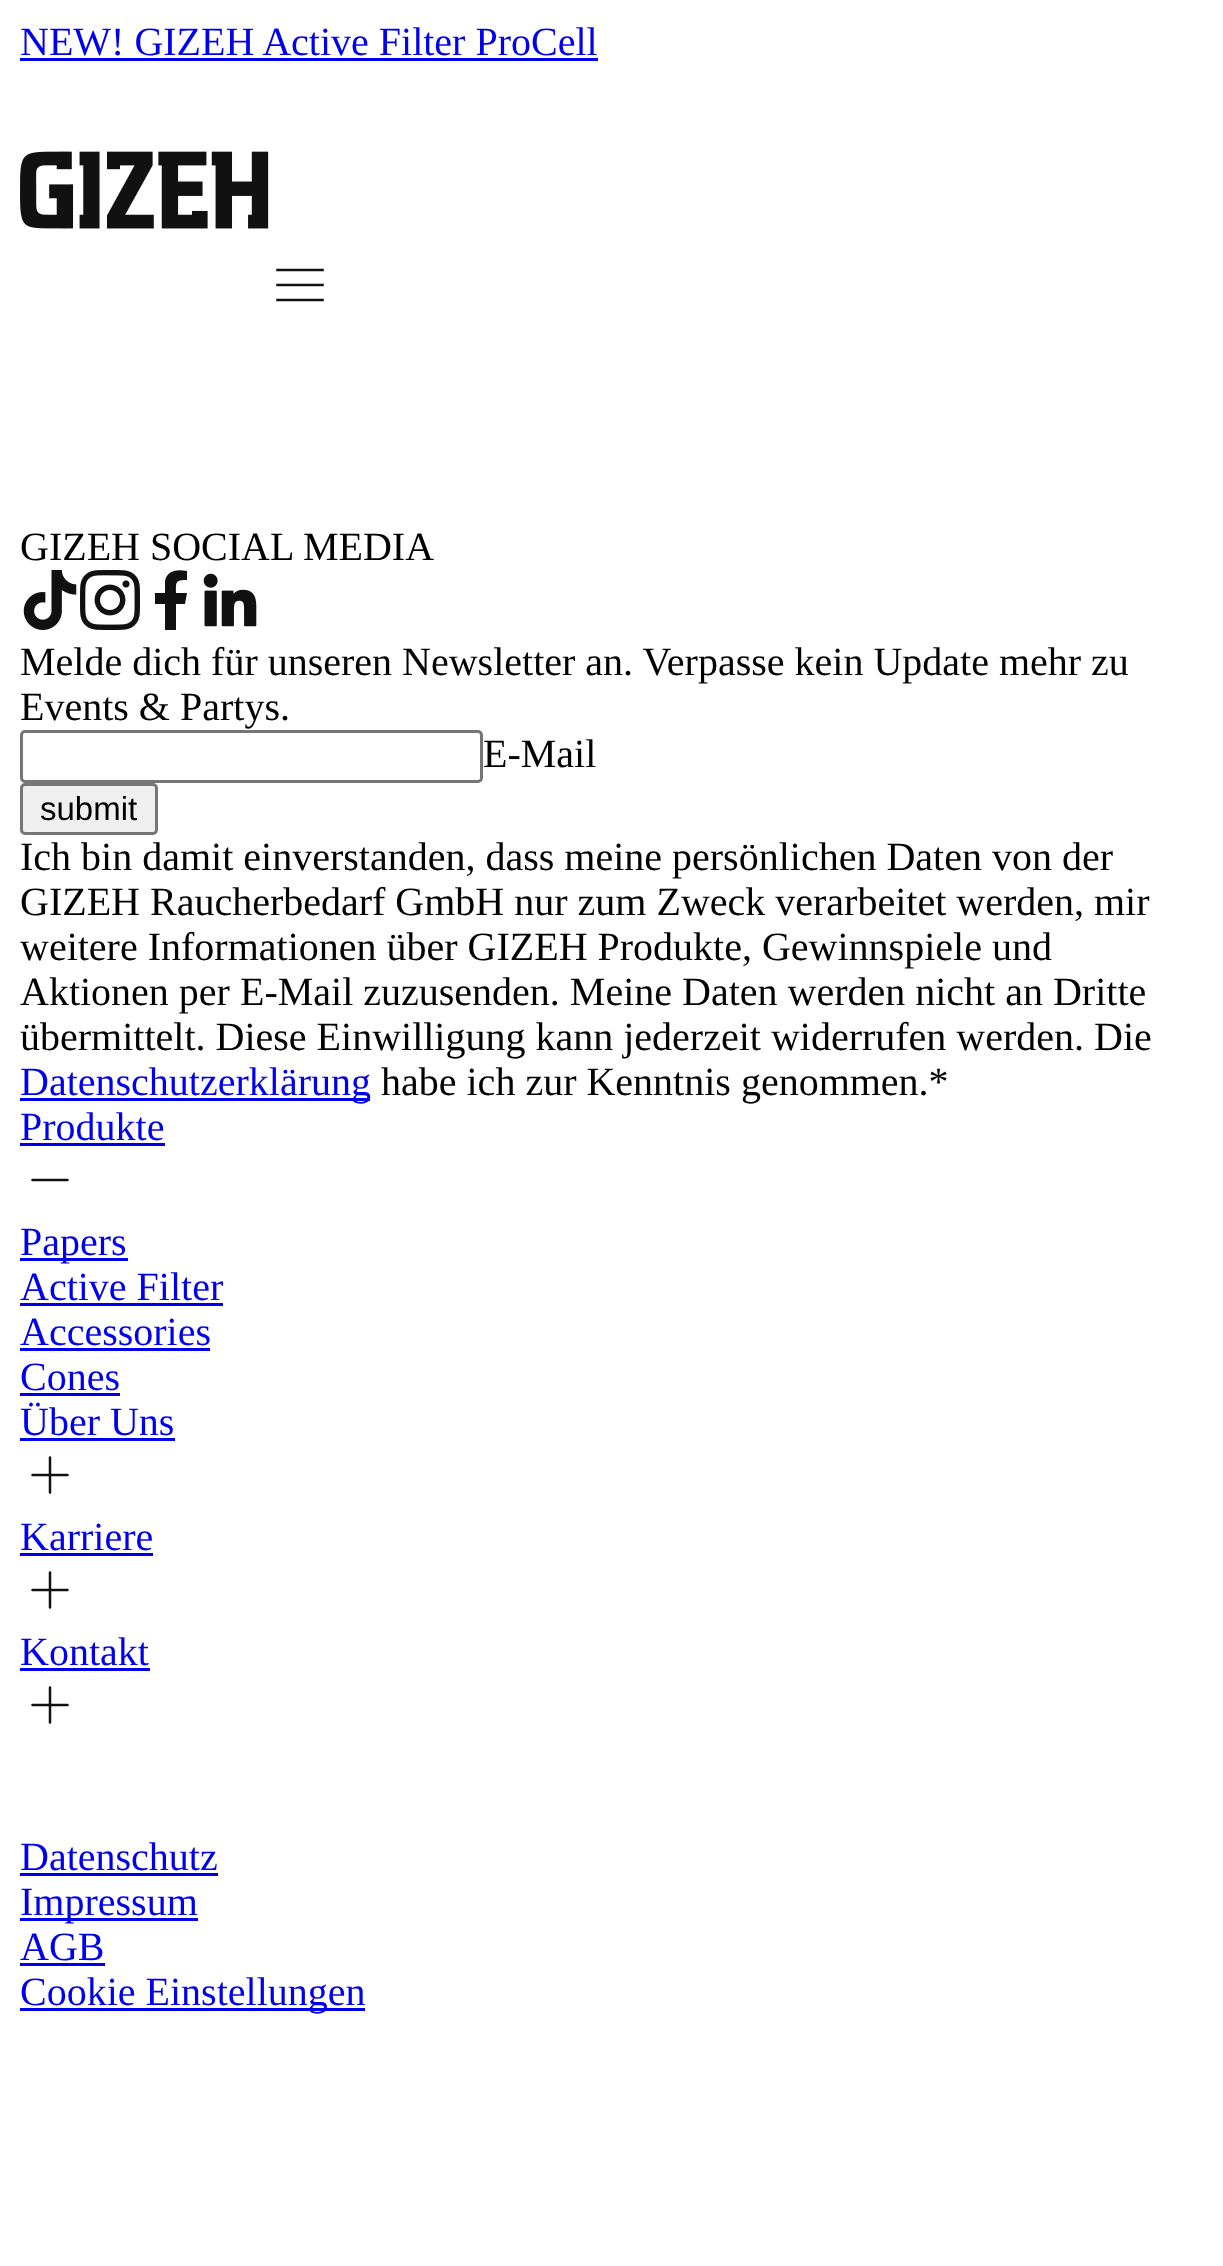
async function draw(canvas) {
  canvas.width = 1223
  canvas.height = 2266
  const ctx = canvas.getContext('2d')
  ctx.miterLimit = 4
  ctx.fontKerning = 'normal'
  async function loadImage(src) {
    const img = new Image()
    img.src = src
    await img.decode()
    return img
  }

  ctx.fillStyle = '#fff'
  ctx.fillRect(0, 0, 1223, 2266)
  ctx.font = '40px Liberation Serif'
  ctx.fillStyle = '#00e'
  ctx.fillText('NEW! GIZEH Active Filter ProCell', 20, 55)
  ctx.fillRect(20, 58, 578, 3)
  ctx.drawImage(await loadImage('image0.png'), 20, 151, 249, 78)
  ctx.beginPath()
  ctx.moveTo(277.5, 285)
  ctx.lineTo(322.5, 285)
  ctx.moveTo(277.5, 270)
  ctx.lineTo(322.5, 270)
  ctx.moveTo(277.5, 300)
  ctx.lineTo(322.5, 300)
  ctx.strokeStyle = '#111'
  ctx.lineWidth = 2.5
  ctx.lineCap = 'square'
  ctx.lineJoin = 'round'
  ctx.stroke()
  ctx.fillStyle = '#000'
  ctx.fillText('GIZEH SOCIAL MEDIA', 20, 560)
  ctx.drawImage(await loadImage('image1.png'), 23, 570, 54, 60)
  ctx.drawImage(await loadImage('image2.png'), 80, 570, 60, 60)
  ctx.fillStyle = '#111'
  ctx.beginPath()
  ctx.moveTo(185, 604)
  ctx.lineTo(187, 593)
  ctx.lineTo(176, 593)
  ctx.bezierCurveTo(176, 582, 175, 580, 187, 580)
  ctx.lineTo(187, 571)
  ctx.bezierCurveTo(178, 569, 167, 570, 165, 581)
  ctx.lineTo(165, 593)
  ctx.lineTo(155, 593)
  ctx.lineTo(155, 604)
  ctx.lineTo(165, 604)
  ctx.lineTo(165, 630)
  ctx.lineTo(176, 630)
  ctx.lineTo(176, 604)
  ctx.closePath()
  ctx.fill()
  ctx.drawImage(await loadImage('image3.png'), 203, 573, 54, 54)
  ctx.fillStyle = '#000'
  ctx.fillText('Melde dich für unseren Newsletter an. Verpasse kein Update mehr zu', 20, 675)
  ctx.fillText('Events & Partys.', 20, 720)
  ctx.beginPath()
  ctx.roundRect(21.5, 731.5, 460, 50, 3.5)
  ctx.strokeStyle = '#767676'
  ctx.lineWidth = 3
  ctx.lineJoin = 'miter'
  ctx.stroke()
  ctx.fillText('E-Mail', 483, 767)
  ctx.fillStyle = '#efefef'
  ctx.beginPath()
  ctx.roundRect(21.5, 784.5, 135, 49, 3.5)
  ctx.fill()
  ctx.stroke()
  ctx.font = '33px Liberation Sans'
  ctx.fillStyle = '#000'
  ctx.fillText('submit', 40, 820)
  ctx.font = '40px Liberation Serif'
  ctx.fillText('Ich bin damit einverstanden, dass meine persönlichen Daten von der', 20, 870)
  ctx.fillText('GIZEH Raucherbedarf GmbH nur zum Zweck verarbeitet werden, mir', 20, 915)
  ctx.fillText('weitere Informationen über GIZEH Produkte, Gewinnspiele und', 20, 960)
  ctx.fillText('Aktionen per E‐Mail zuzusenden. Meine Daten werden nicht an Dritte', 20, 1005)
  ctx.fillText('übermittelt. Diese Einwilligung kann jederzeit widerrufen werden. Die', 20, 1050)
  ctx.fillStyle = '#00e'
  ctx.fillRect(20, 1098, 350, 3)
  ctx.fillText('Datenschutzerklärung', 20, 1095)
  ctx.fillStyle = '#000'
  ctx.fillText('habe ich zur Kenntnis genommen.*', 381, 1095)
  ctx.fillStyle = '#00e'
  ctx.fillText('Produkte', 20, 1140)
  ctx.fillRect(20, 1143, 145, 3)
  ctx.beginPath()
  ctx.moveTo(32.5, 1180)
  ctx.lineTo(67.5, 1180)
  ctx.strokeStyle = '#111'
  ctx.lineWidth = 2.5
  ctx.lineCap = 'round'
  ctx.lineJoin = 'round'
  ctx.stroke()
  ctx.fillRect(20, 1258, 108, 3)
  ctx.fillText('Papers', 20, 1255)
  ctx.fillText('Active Filter', 20, 1300)
  ctx.fillRect(20, 1303, 203, 3)
  ctx.fillText('Accessories', 20, 1345)
  ctx.fillRect(20, 1348, 190, 3)
  ctx.fillText('Cones', 20, 1390)
  ctx.fillRect(20, 1393, 100, 3)
  ctx.fillText('Über Uns', 20, 1435)
  ctx.fillRect(20, 1438, 155, 3)
  ctx.beginPath()
  ctx.moveTo(50, 1457.5)
  ctx.lineTo(50, 1492.5)
  ctx.moveTo(32.5, 1475)
  ctx.lineTo(67.5, 1475)
  ctx.stroke()
  ctx.fillText('Karriere', 20, 1550)
  ctx.fillRect(20, 1553, 133, 3)
  ctx.beginPath()
  ctx.moveTo(50, 1572.5)
  ctx.lineTo(50, 1607.5)
  ctx.moveTo(32.5, 1590)
  ctx.lineTo(67.5, 1590)
  ctx.stroke()
  ctx.fillText('Kontakt', 20, 1665)
  ctx.fillRect(20, 1668, 130, 3)
  ctx.beginPath()
  ctx.moveTo(50, 1687.5)
  ctx.lineTo(50, 1722.5)
  ctx.moveTo(32.5, 1705)
  ctx.lineTo(67.5, 1705)
  ctx.stroke()
  ctx.fillText('Datenschutz', 20, 1870)
  ctx.fillRect(20, 1873, 198, 3)
  ctx.fillRect(20, 1918, 178, 3)
  ctx.fillText('Impressum', 20, 1915)
  ctx.fillText('AGB', 20, 1960)
  ctx.fillRect(20, 1963, 85, 3)
  ctx.fillRect(20, 2008, 345, 3)
  ctx.fillText('Cookie Einstellungen', 20, 2005)
}

draw(document.querySelector('canvas'))
